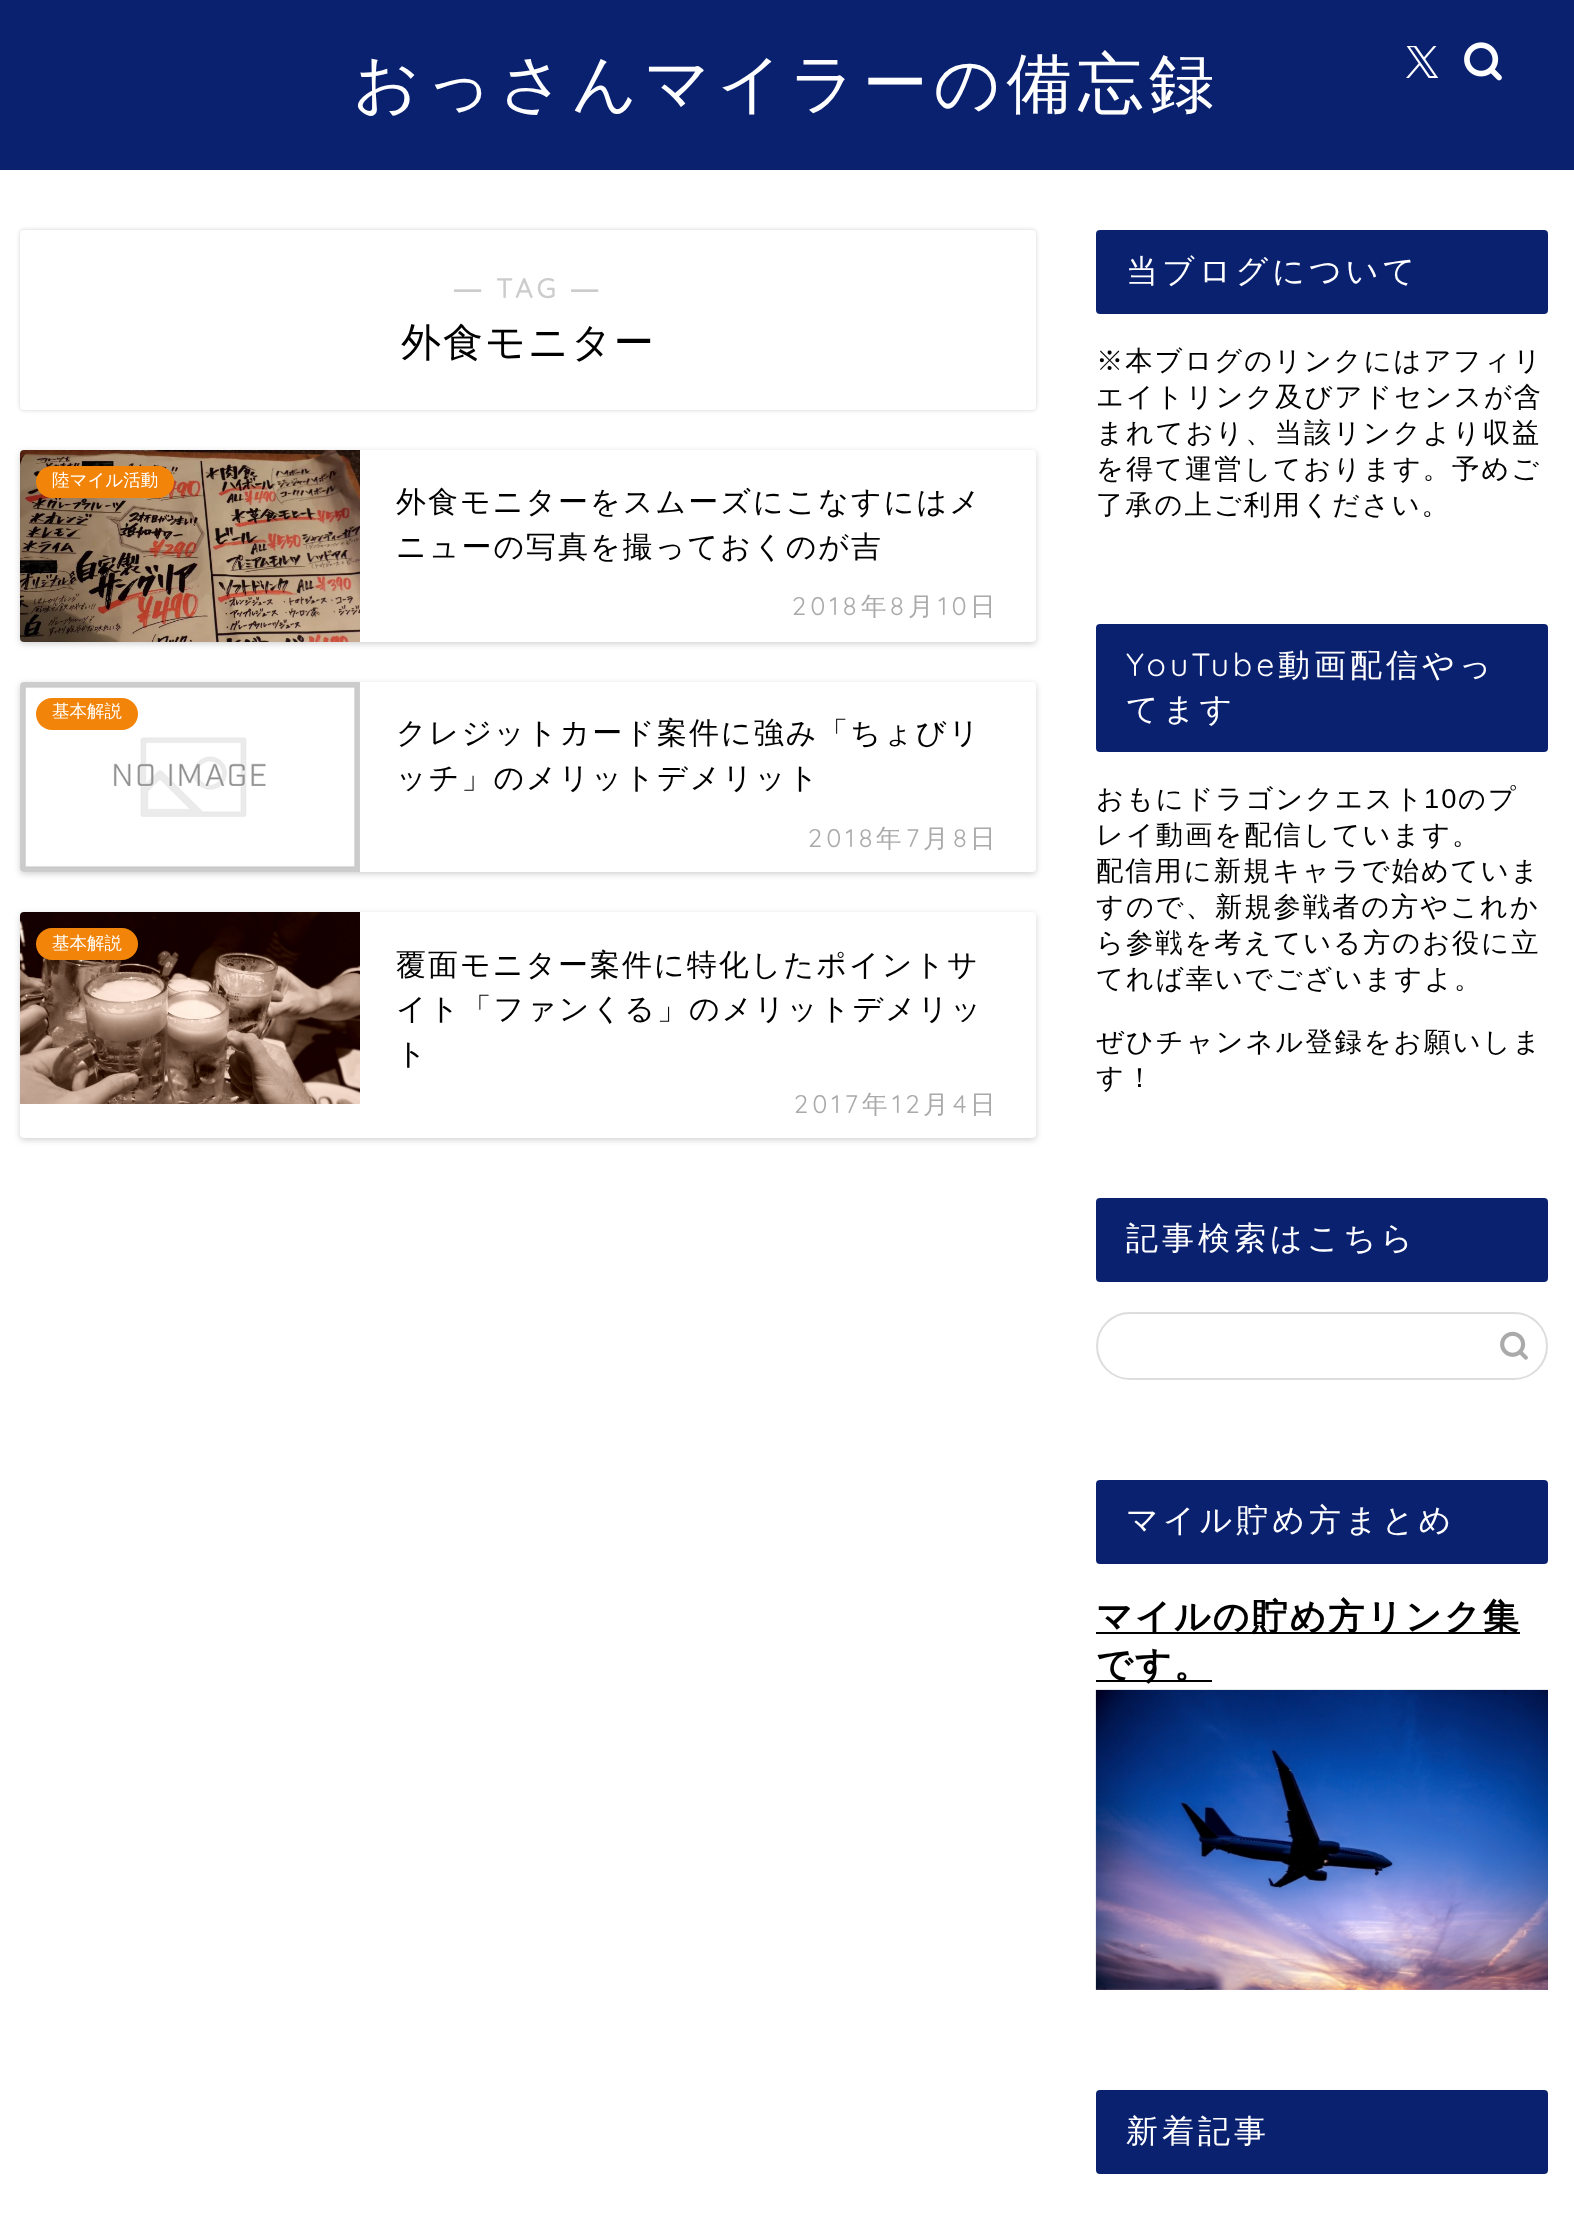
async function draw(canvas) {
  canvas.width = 1574
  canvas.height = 2215
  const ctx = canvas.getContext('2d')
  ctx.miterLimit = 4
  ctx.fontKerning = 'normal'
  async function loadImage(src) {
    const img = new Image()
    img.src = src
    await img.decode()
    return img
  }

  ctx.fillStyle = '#fff'
  ctx.fillRect(0, 0, 1574, 2215)
  ctx.fillStyle = '#0a2170'
  ctx.fillRect(0, 0, 1574, 170)
  ctx.letterSpacing = '6px'
  ctx.font = '500 65.25px WenQuanYi Zen Hei'
  ctx.fillStyle = '#fff'
  ctx.fillText('おっさんマイラーの備忘録', 353, 106)
  ctx.drawImage(await loadImage('image0.png'), 1406, 46, 33, 32)
  ctx.drawImage(await loadImage('image1.png'), 1464, 42, 38, 39)
  ctx.fillStyle = '#0000002e'
  ctx.filter = 'blur(2px)'
  ctx.beginPath()
  ctx.roundRect(20, 230, 1016, 180, 4)
  ctx.fill()
  ctx.filter = 'none'
  ctx.fillStyle = '#fff'
  ctx.beginPath()
  ctx.roundRect(20, 230, 1016, 180, 4)
  ctx.fill()
  ctx.letterSpacing = '4px'
  ctx.font = 'bold 27.25px Liberation Sans'
  ctx.fillStyle = '#ccc'
  ctx.fillText('―', 454, 298)
  ctx.font = 'bold 27.25px Quicksand'
  ctx.fillText('TAG', 496, 298)
  ctx.font = 'bold 27.25px Liberation Sans'
  ctx.fillText('―', 571, 298)
  ctx.letterSpacing = '2px'
  ctx.font = '500 40px WenQuanYi Zen Hei'
  ctx.fillStyle = '#000'
  ctx.fillText('外食モニター', 401, 356)
  ctx.fillStyle = '#0000002e'
  ctx.filter = 'blur(3px)'
  ctx.beginPath()
  ctx.roundRect(20, 452, 1016, 192, 4)
  ctx.fill()
  ctx.filter = 'none'
  ctx.fillStyle = '#fff'
  ctx.beginPath()
  ctx.roundRect(20, 450, 1016, 192, 4)
  ctx.fill()
  ctx.drawImage(await loadImage('image2.png'), 20, 450, 340, 192)
  ctx.fillStyle = '#f28509'
  ctx.beginPath()
  ctx.roundRect(36, 466, 138, 32, 16)
  ctx.fill()
  ctx.letterSpacing = '0px'
  ctx.font = '500 17.5px WenQuanYi Zen Hei'
  ctx.fillStyle = '#fff'
  ctx.fillText('陸マイル活動', 52, 486)
  ctx.letterSpacing = '2px'
  ctx.font = '500 30px WenQuanYi Zen Hei'
  ctx.fillStyle = '#000'
  ctx.fillText('外食モニターをスムーズにこなすにはメ', 396, 512)
  ctx.fillText('ニューの写真を撮っておくのが吉', 396, 557)
  ctx.letterSpacing = '4px'
  ctx.font = '300 25.5px Quicksand'
  ctx.fillStyle = '#aaa'
  ctx.fillText('2018', 792, 615)
  ctx.font = '500 25.5px WenQuanYi Zen Hei'
  ctx.fillText('年', 861, 615)
  ctx.font = '300 25.5px Quicksand'
  ctx.fillText('8', 890, 615)
  ctx.font = '500 25.5px WenQuanYi Zen Hei'
  ctx.fillText('月', 908, 615)
  ctx.font = '300 25.5px Quicksand'
  ctx.fillText('10', 938, 615)
  ctx.font = '500 25.5px WenQuanYi Zen Hei'
  ctx.fillText('日', 970, 615)
  ctx.fillStyle = '#0000002e'
  ctx.filter = 'blur(3px)'
  ctx.beginPath()
  ctx.roundRect(20, 684, 1016, 190, 4)
  ctx.fill()
  ctx.filter = 'none'
  ctx.fillStyle = '#fff'
  ctx.beginPath()
  ctx.roundRect(20, 682, 1016, 190, 4)
  ctx.fill()
  ctx.drawImage(await loadImage('image3.png'), 20, 682, 340, 190)
  ctx.fillStyle = '#f28509'
  ctx.beginPath()
  ctx.roundRect(36, 698, 102, 32, 16)
  ctx.fill()
  ctx.letterSpacing = '0px'
  ctx.font = '500 17.5px WenQuanYi Zen Hei'
  ctx.fillStyle = '#fff'
  ctx.fillText('基本解説', 52, 717)
  ctx.letterSpacing = '2px'
  ctx.font = '500 30px WenQuanYi Zen Hei'
  ctx.fillStyle = '#000'
  ctx.fillText('クレジットカード案件に強み「ちょびリ', 396, 743)
  ctx.fillText('ッチ」のメリットデメリット', 396, 788)
  ctx.letterSpacing = '4px'
  ctx.font = '300 25.5px Quicksand'
  ctx.fillStyle = '#aaa'
  ctx.fillText('2018', 808, 847)
  ctx.font = '500 25.5px WenQuanYi Zen Hei'
  ctx.fillText('年', 876, 847)
  ctx.font = '300 25.5px Quicksand'
  ctx.fillText('7', 906, 847)
  ctx.font = '500 25.5px WenQuanYi Zen Hei'
  ctx.fillText('月', 923, 847)
  ctx.font = '300 25.5px Quicksand'
  ctx.fillText('8', 953, 847)
  ctx.font = '500 25.5px WenQuanYi Zen Hei'
  ctx.fillText('日', 970, 847)
  ctx.fillStyle = '#0000002e'
  ctx.filter = 'blur(3px)'
  ctx.beginPath()
  ctx.roundRect(20, 914, 1016, 226, 4)
  ctx.fill()
  ctx.filter = 'none'
  ctx.fillStyle = '#fff'
  ctx.beginPath()
  ctx.roundRect(20, 912, 1016, 226, 4)
  ctx.fill()
  ctx.drawImage(await loadImage('image4.png'), 20, 912, 340, 192)
  ctx.fillStyle = '#f28509'
  ctx.beginPath()
  ctx.roundRect(36, 928, 102, 32, 16)
  ctx.fill()
  ctx.letterSpacing = '0px'
  ctx.font = '500 17.5px WenQuanYi Zen Hei'
  ctx.fillStyle = '#fff'
  ctx.fillText('基本解説', 52, 949)
  ctx.letterSpacing = '2px'
  ctx.font = '500 30px WenQuanYi Zen Hei'
  ctx.fillStyle = '#000'
  ctx.fillText('覆面モニター案件に特化したポイントサ', 396, 975)
  ctx.fillText('イト「ファンくる」のメリットデメリッ', 396, 1019)
  ctx.fillText('ト', 396, 1064)
  ctx.letterSpacing = '4px'
  ctx.font = '300 25.5px Quicksand'
  ctx.fillStyle = '#aaa'
  ctx.fillText('2017', 794, 1113)
  ctx.font = '500 25.5px WenQuanYi Zen Hei'
  ctx.fillText('年', 862, 1113)
  ctx.font = '300 25.5px Quicksand'
  ctx.fillText('12', 892, 1113)
  ctx.font = '500 25.5px WenQuanYi Zen Hei'
  ctx.fillText('月', 923, 1113)
  ctx.font = '300 25.5px Quicksand'
  ctx.fillText('4', 953, 1113)
  ctx.font = '500 25.5px WenQuanYi Zen Hei'
  ctx.fillText('日', 970, 1113)
  ctx.fillStyle = '#0a2170'
  ctx.beginPath()
  ctx.roundRect(1096, 230, 452, 84, 4)
  ctx.fill()
  ctx.font = '500 32px WenQuanYi Zen Hei'
  ctx.fillStyle = '#fff'
  ctx.fillText('当ブログについて', 1126, 282)
  ctx.letterSpacing = '2px'
  ctx.font = '500 27.25px WenQuanYi Zen Hei'
  ctx.fillStyle = '#000'
  ctx.fillText('※本ブログのリンクにはアフィリ', 1096, 370)
  ctx.fillText('エイトリンク及びアドセンスが含', 1096, 406)
  ctx.fillText('まれており、当該リンクより収益', 1096, 442)
  ctx.fillText('を得て運営しております。予めご', 1096, 478)
  ctx.fillText('了承の上ご利用ください。', 1096, 514)
  ctx.fillStyle = '#0a2170'
  ctx.beginPath()
  ctx.roundRect(1096, 624, 452, 128, 4)
  ctx.fill()
  ctx.letterSpacing = '4px'
  ctx.font = '300 32px Quicksand'
  ctx.fillStyle = '#fff'
  ctx.fillText('YouTube', 1126, 676)
  ctx.font = '500 32px WenQuanYi Zen Hei'
  ctx.fillText('動画配信やっ', 1278, 676)
  ctx.fillText('てます', 1126, 720)
  ctx.letterSpacing = '2px'
  ctx.font = '500 27.25px WenQuanYi Zen Hei'
  ctx.fillStyle = '#000'
  ctx.fillText('おもにドラゴンクエスト', 1096, 808)
  ctx.font = '27.25px Liberation Sans'
  ctx.fillText('10', 1424, 808)
  ctx.font = '500 27.25px WenQuanYi Zen Hei'
  ctx.fillText('のプ', 1458, 808)
  ctx.fillText('レイ動画を配信しています。', 1096, 844)
  ctx.fillText('配信用に新規キャラで始めていま', 1096, 880)
  ctx.fillText('すので、新規参戦者の方やこれか', 1096, 916)
  ctx.fillText('ら参戦を考えている方のお役に立', 1096, 952)
  ctx.fillText('てれば幸いでございますよ。', 1096, 988)
  ctx.fillText('ぜひチャンネル登録をお願いしま', 1096, 1051)
  ctx.fillText('す！', 1096, 1087)
  ctx.fillStyle = '#0a2170'
  ctx.beginPath()
  ctx.roundRect(1096, 1198, 452, 84, 4)
  ctx.fill()
  ctx.letterSpacing = '4px'
  ctx.font = '500 32px WenQuanYi Zen Hei'
  ctx.fillStyle = '#fff'
  ctx.fillText('記事検索はこちら', 1126, 1249)
  ctx.beginPath()
  ctx.roundRect(1097, 1313, 450, 66, 33)
  ctx.strokeStyle = '#ddd'
  ctx.lineWidth = 2
  ctx.stroke()
  ctx.drawImage(await loadImage('image5.png'), 1500, 1331, 28, 29)
  ctx.fillStyle = '#0a2170'
  ctx.beginPath()
  ctx.roundRect(1096, 1480, 452, 84, 4)
  ctx.fill()
  ctx.fillStyle = '#fff'
  ctx.fillText('マイル貯め方まとめ', 1126, 1531)
  ctx.fillStyle = '#000'
  ctx.fillRect(1096, 1632, 424, 2)
  ctx.letterSpacing = '2px'
  ctx.font = 'bold 36px WenQuanYi Zen Hei'
  ctx.fillText('マイルの貯め方リンク集', 1096, 1629)
  ctx.fillRect(1096, 1680, 116, 2)
  ctx.fillText('です。', 1096, 1677)
  ctx.drawImage(await loadImage('image6.png'), 1095, 1689, 453, 301)
  ctx.fillStyle = '#0a2170'
  ctx.beginPath()
  ctx.roundRect(1096, 2090, 452, 84, 4)
  ctx.fill()
  ctx.letterSpacing = '4px'
  ctx.font = '500 32px WenQuanYi Zen Hei'
  ctx.fillStyle = '#fff'
  ctx.fillText('新着記事', 1126, 2142)
}

draw(document.querySelector('canvas'))
